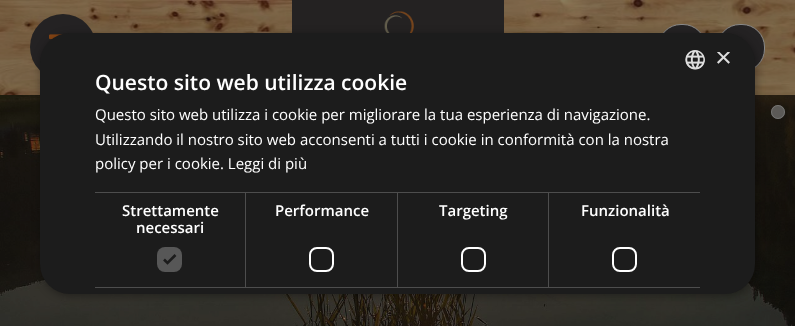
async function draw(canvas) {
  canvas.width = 795
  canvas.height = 326
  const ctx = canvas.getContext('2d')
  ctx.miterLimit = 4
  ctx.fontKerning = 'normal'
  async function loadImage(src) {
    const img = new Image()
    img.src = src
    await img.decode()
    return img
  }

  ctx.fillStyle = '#fff'
  ctx.fillRect(0, 0, 795, 326)
  ctx.drawImage(await loadImage('image0.png'), 0, 0, 795, 95)
  ctx.drawImage(await loadImage('image1.png'), 292, 0, 212, 33)
  ctx.fillStyle = '#242223'
  ctx.beginPath()
  ctx.arc(63, 47, 33, 0, 2 * Math.PI)
  ctx.fill()
  ctx.drawImage(await loadImage('image2.png'), 49, 34, 14, 6)
  ctx.beginPath()
  ctx.roundRect(658.5, 24.5, 47, 47, 22.5)
  ctx.fill()
  ctx.strokeStyle = '#888'
  ctx.stroke()
  ctx.beginPath()
  ctx.roundRect(717.5, 24.5, 47, 47, 22.5)
  ctx.fill()
  ctx.stroke()
  ctx.drawImage(await loadImage('image4.png'), 0, 95, 795, 231)
  ctx.fillStyle = '#00000059'
  ctx.filter = 'blur(4px)'
  ctx.beginPath()
  ctx.roundRect(41, 35, 715, 261, 30)
  ctx.fill()
  ctx.filter = 'none'
  ctx.fillStyle = '#1c1c1c'
  ctx.beginPath()
  ctx.roundRect(40, 33, 715, 261, 30)
  ctx.fill()
  ctx.drawImage(await loadImage('image3.png'), 685, 50, 20, 20)
  ctx.save()
  ctx.beginPath()
  ctx.rect(715, 52, 15, 15)
  ctx.clip()
  ctx.font = '29px Liberation Sans'
  ctx.fillStyle = '#ddd'
  ctx.fillText('×', 715, 67)
  ctx.restore()
  ctx.font = '600 21px Open Sans'
  ctx.fillStyle = '#fff'
  ctx.fillText('Questo sito web utilizza cookie', 95, 90)
  ctx.font = '15px Open Sans'
  ctx.fillText('Questo sito web utilizza i cookie per migliorare la tua esperienza di navigazione.', 95, 120)
  ctx.fillText('Utilizzando il nostro sito web acconsenti a tutti i cookie in conformità con la nostra', 95, 145)
  ctx.fillText('policy per i cookie. Leggi di più', 95, 169)
  ctx.fillStyle = '#4d4d4d'
  ctx.fillRect(95, 192, 605, 1)
  ctx.fillRect(245, 192, 1, 96)
  ctx.fillRect(95, 287, 151, 1)
  ctx.font = '600 15px Open Sans'
  ctx.fillStyle = '#fff'
  ctx.fillText('Strettamente', 122, 216)
  ctx.fillText('necessari', 136, 233)
  ctx.fillStyle = '#575757'
  ctx.beginPath()
  ctx.roundRect(157, 247, 25, 25, 8)
  ctx.fill()
  ctx.beginPath()
  ctx.moveTo(164, 259.5)
  ctx.lineTo(167.5, 263)
  ctx.lineTo(175.5, 255)
  ctx.strokeStyle = '#1c1c1c'
  ctx.lineWidth = 2.6
  ctx.stroke()
  ctx.fillStyle = '#4d4d4d'
  ctx.fillRect(397, 192, 1, 96)
  ctx.fillRect(246, 287, 152, 1)
  ctx.fillStyle = '#fff'
  ctx.fillText('Performance', 275, 216)
  ctx.beginPath()
  ctx.roundRect(310, 248, 23, 23, 7)
  ctx.strokeStyle = '#fff'
  ctx.lineWidth = 2
  ctx.stroke()
  ctx.fillStyle = '#4d4d4d'
  ctx.fillRect(548, 192, 1, 96)
  ctx.fillRect(398, 287, 302, 1)
  ctx.fillStyle = '#fff'
  ctx.fillText('Targeting', 439, 216)
  ctx.beginPath()
  ctx.roundRect(462, 248, 23, 23, 7)
  ctx.stroke()
  ctx.fillText('Funzionalità', 581, 216)
  ctx.beginPath()
  ctx.roundRect(613, 248, 23, 23, 7)
  ctx.stroke()
  ctx.fillStyle = '#88888899'
  ctx.beginPath()
  ctx.arc(778, 112, 7, 0, 2 * Math.PI)
  ctx.fill()
  ctx.beginPath()
  ctx.arc(778, 112, 6.5, 0, 2 * Math.PI)
  ctx.strokeStyle = '#88888899'
  ctx.lineWidth = 1
  ctx.stroke()
}

draw(document.querySelector('canvas'))
